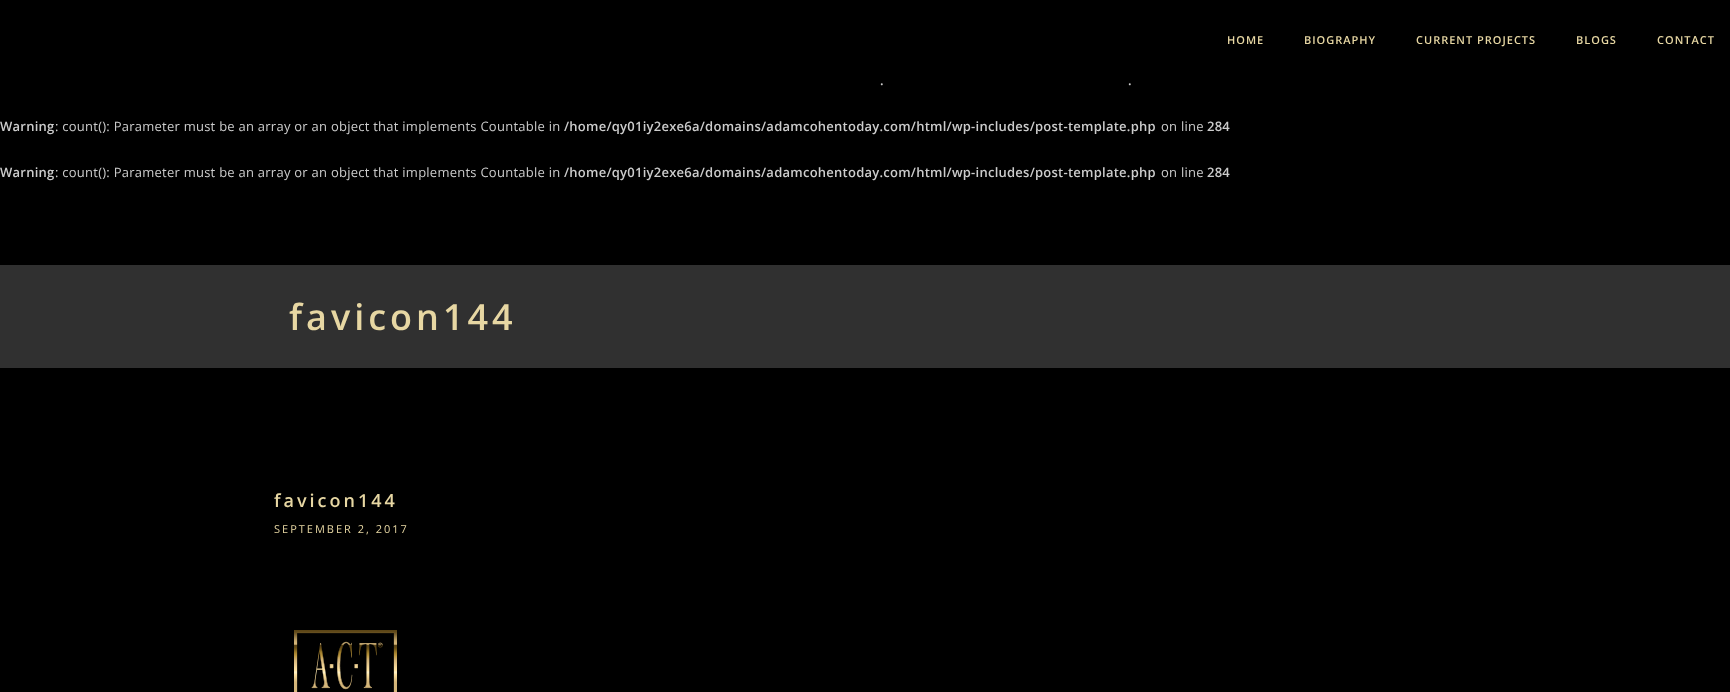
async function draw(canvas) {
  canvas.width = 1730
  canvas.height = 692
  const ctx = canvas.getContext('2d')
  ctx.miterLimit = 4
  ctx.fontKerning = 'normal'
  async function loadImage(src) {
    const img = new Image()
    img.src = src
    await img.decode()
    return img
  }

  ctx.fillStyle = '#000'
  ctx.fillRect(0, 0, 1730, 692)
  ctx.letterSpacing = '1px'
  ctx.font = '600 11px Open Sans'
  ctx.fillStyle = '#e7d7a3'
  ctx.fillText('HOME', 1227, 44)
  ctx.fillText('BIOGRAPHY', 1304, 44)
  ctx.fillText('CURRENT PROJECTS', 1416, 44)
  ctx.fillText('BLOGS', 1576, 44)
  ctx.fillText('CONTACT', 1657, 44)
  ctx.letterSpacing = '0.25px'
  ctx.font = '600 13px Open Sans'
  ctx.fillStyle = '#ccc'
  ctx.fillText('.', 880, 85)
  ctx.fillText('.', 1128, 85)
  ctx.fillText('Warning', 0, 131)
  ctx.font = '13px Open Sans'
  ctx.fillText(': count(): Parameter must be an array or an object that implements Countable in', 55, 131)
  ctx.font = '600 13px Open Sans'
  ctx.fillText('/home/qy01iy2exe6a/domains/adamcohentoday.com/html/wp-includes/post-template.php', 564, 131)
  ctx.font = '13px Open Sans'
  ctx.fillText('on line', 1161, 131)
  ctx.font = '600 13px Open Sans'
  ctx.fillText('284', 1207, 131)
  ctx.fillText('Warning', 0, 177)
  ctx.font = '13px Open Sans'
  ctx.fillText(': count(): Parameter must be an array or an object that implements Countable in', 55, 177)
  ctx.font = '600 13px Open Sans'
  ctx.fillText('/home/qy01iy2exe6a/domains/adamcohentoday.com/html/wp-includes/post-template.php', 564, 177)
  ctx.font = '13px Open Sans'
  ctx.fillText('on line', 1161, 177)
  ctx.font = '600 13px Open Sans'
  ctx.fillText('284', 1207, 177)
  ctx.fillStyle = '#303030'
  ctx.fillRect(0, 265, 1730, 103)
  ctx.letterSpacing = '4px'
  ctx.font = '600 36px Open Sans'
  ctx.fillStyle = '#e7d7a3'
  ctx.fillText('favicon144', 289, 330)
  ctx.letterSpacing = '3px'
  ctx.font = '600 18px Open Sans'
  ctx.fillText('favicon144', 274, 507)
  ctx.letterSpacing = '2px'
  ctx.font = '11px Open Sans'
  ctx.fillText('SEPTEMBER 2, 2017', 274, 533)
  ctx.drawImage(await loadImage('image0.png'), 294, 630, 103, 62)
}

draw(document.querySelector('canvas'))
